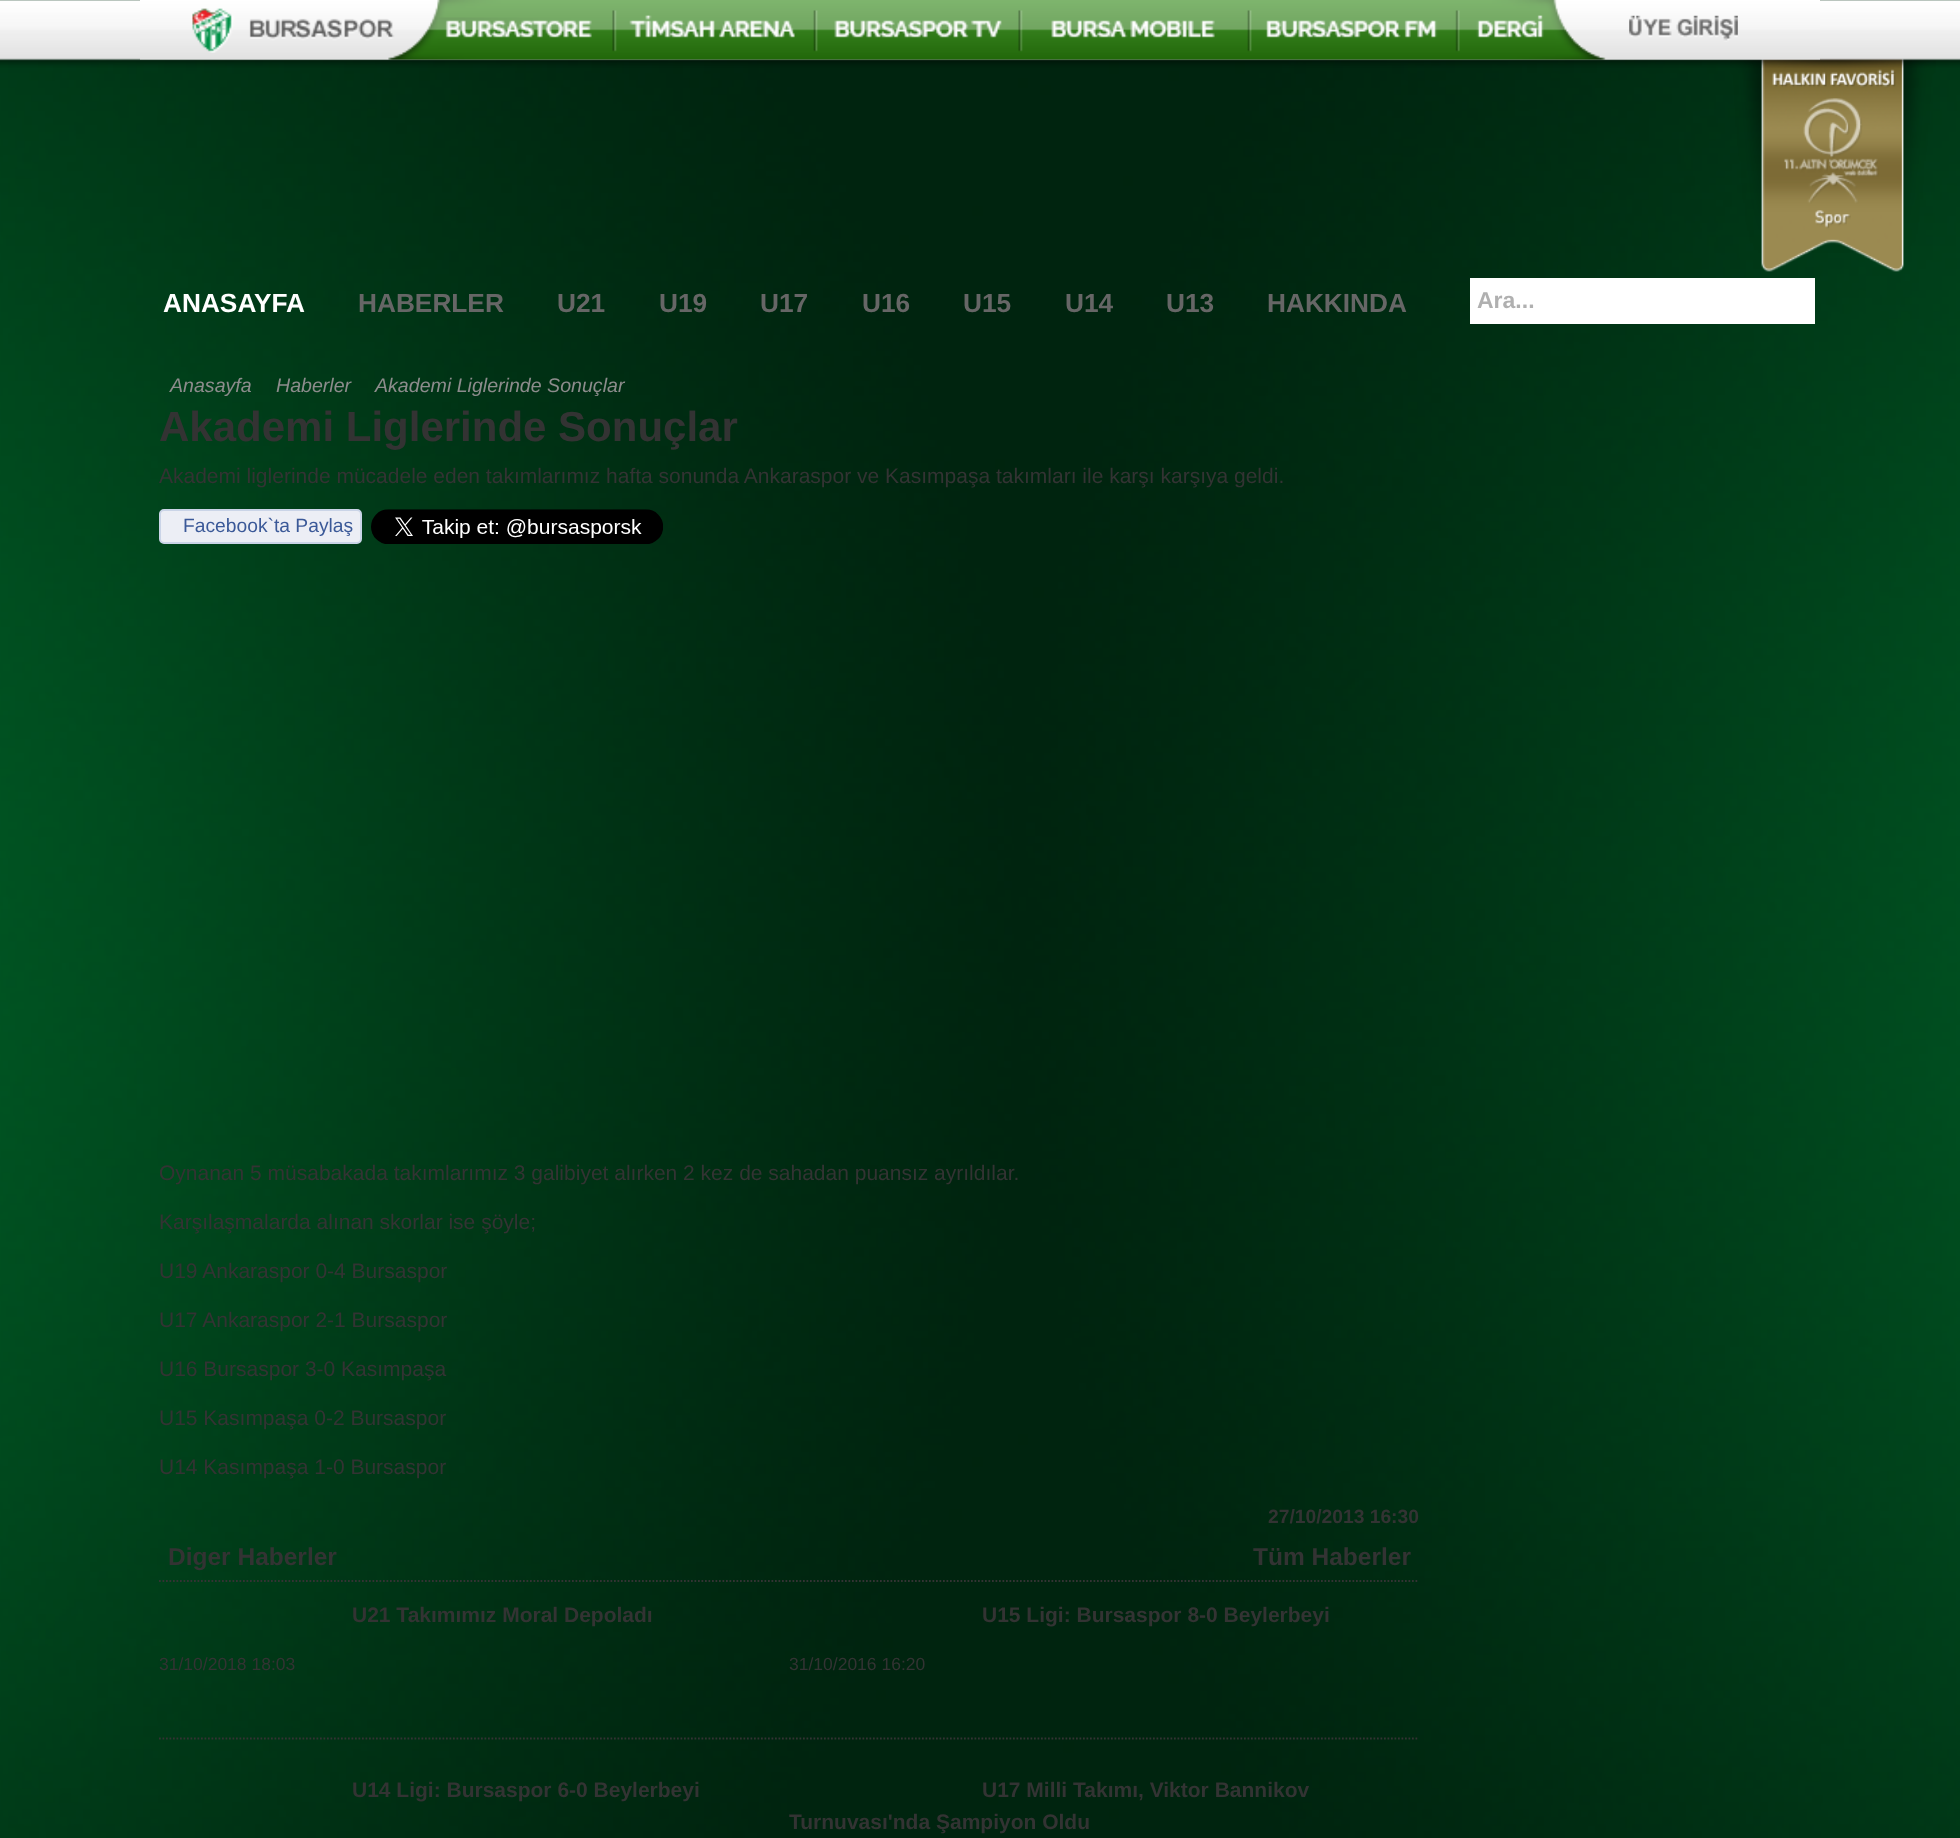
async function draw(canvas) {
  canvas.width = 1960
  canvas.height = 1838
  const ctx = canvas.getContext('2d')
  ctx.miterLimit = 4
  ctx.fontKerning = 'normal'
  async function loadImage(src) {
    const img = new Image()
    img.src = src
    await img.decode()
    return img
  }

  ctx.fillStyle = '#fff'
  ctx.fillRect(0, 0, 1960, 1838)
  ctx.drawImage(await loadImage('image0.png'), 0, 0, 1960, 1838)
  ctx.drawImage(await loadImage('image4.png'), 1730, 58, 206, 214)
  ctx.drawImage(await loadImage('image1.png'), 0, 0, 1960, 68)
  ctx.drawImage(await loadImage('image2.png'), 140, 0, 1680, 60)
  ctx.drawImage(await loadImage('image3.png'), 1629, 15, 109, 27)
  ctx.font = 'bold 26.25px Liberation Sans'
  ctx.fillText('ANASAYFA', 163, 312)
  ctx.fillStyle = '#666'
  ctx.fillText('HABERLER', 358, 312)
  ctx.fillText('U21', 557, 312)
  ctx.fillText('U19', 659, 312)
  ctx.fillText('U17', 760, 312)
  ctx.fillText('U16', 862, 312)
  ctx.fillText('U15', 963, 312)
  ctx.fillText('U14', 1065, 312)
  ctx.fillText('U13', 1166, 312)
  ctx.fillText('HAKKINDA', 1267, 312)
  ctx.fillStyle = '#fff'
  ctx.fillRect(1470, 278, 345, 46)
  ctx.font = 'bold 23px Liberation Sans'
  ctx.fillStyle = '#b0b0b0'
  ctx.fillText('Ara...', 1477, 308)
  ctx.font = 'italic 19.6px Liberation Sans'
  ctx.fillStyle = '#8c8c8c'
  ctx.fillText('Anasayfa', 170, 392)
  ctx.fillText('Haberler', 276, 392)
  ctx.fillText('Akademi Liglerinde Sonuçlar', 375, 392)
  ctx.font = 'bold 42px Liberation Sans'
  ctx.fillStyle = '#333'
  ctx.fillText('Akademi Liglerinde Sonuçlar', 159, 441)
  ctx.font = '21px Liberation Sans'
  ctx.fillText('Akademi liglerinde mücadele eden takımlarımız hafta sonunda Ankaraspor ve Kasımpaşa takımları ile karşı karşıya geldi.', 159, 483)
  ctx.fillStyle = '#eceef5'
  ctx.beginPath()
  ctx.roundRect(160, 510, 201, 33, 4)
  ctx.fill()
  ctx.strokeStyle = '#cad4e7'
  ctx.lineWidth = 2
  ctx.stroke()
  ctx.font = '19.25px Liberation Sans'
  ctx.fillStyle = '#3b5998'
  ctx.fillText('Facebook`ta Paylaş', 183, 532)
  ctx.drawImage(await loadImage('image5.png'), 371, 509, 292, 35)
  ctx.font = '21px Liberation Sans'
  ctx.fillStyle = '#333'
  ctx.fillText('Oynanan 5 müsabakada takımlarımız 3 galibiyet alırken 2 kez de sahadan puansız ayrıldılar.', 159, 1180)
  ctx.fillText('Karşılaşmalarda alınan skorlar ise şöyle;', 159, 1229)
  ctx.fillText('U19 Ankaraspor 0-4 Bursaspor', 159, 1278)
  ctx.fillText('U17 Ankaraspor 2-1 Bursaspor', 159, 1327)
  ctx.fillText('U16 Bursaspor 3-0 Kasımpaşa', 159, 1376)
  ctx.fillText('U15 Kasımpaşa 0-2 Bursaspor', 159, 1425)
  ctx.fillText('U14 Kasımpaşa 1-0 Bursaspor', 159, 1474)
  ctx.font = 'bold 19.25px Liberation Sans'
  ctx.fillText('27/10/2013 16:30', 1268, 1523)
  ctx.font = 'bold 24.5px Liberation Sans'
  ctx.fillText('Diger Haberler', 168, 1565)
  ctx.fillText('Tüm Haberler', 1253, 1565)
  ctx.beginPath()
  ctx.moveTo(159, 1581)
  ctx.lineTo(1419, 1581)
  ctx.strokeStyle = '#333'
  ctx.lineWidth = 1.8
  ctx.setLineDash([1.75, 1.75])
  ctx.stroke()
  ctx.font = 'bold 21px Liberation Sans'
  ctx.fillText('U21 Takımımız Moral Depoladı', 352, 1622)
  ctx.font = '17.5px Liberation Sans'
  ctx.fillText('31/10/2018 18:03', 159, 1670)
  ctx.beginPath()
  ctx.moveTo(159, 1738.5)
  ctx.lineTo(789, 1738.5)
  ctx.stroke()
  ctx.font = 'bold 21px Liberation Sans'
  ctx.fillText('U15 Ligi: Bursaspor 8-0 Beylerbeyi', 982, 1622)
  ctx.font = '17.5px Liberation Sans'
  ctx.fillText('31/10/2016 16:20', 789, 1670)
  ctx.beginPath()
  ctx.moveTo(789, 1738.5)
  ctx.lineTo(1419, 1738.5)
  ctx.stroke()
  ctx.font = 'bold 21px Liberation Sans'
  ctx.fillText('U14 Ligi: Bursaspor 6-0 Beylerbeyi', 352, 1797)
  ctx.fillText('U17 Milli Takımı, Viktor Bannikov', 982, 1797)
  ctx.fillText('Turnuvası\'nda Şampiyon Oldu', 789, 1829)
}

draw(document.querySelector('canvas'))
